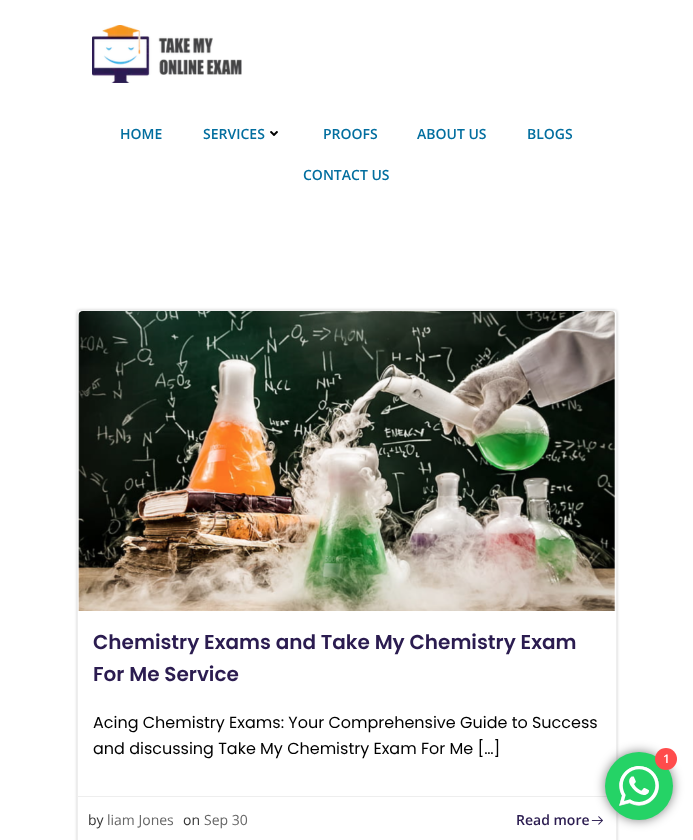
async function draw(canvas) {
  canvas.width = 693
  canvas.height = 840
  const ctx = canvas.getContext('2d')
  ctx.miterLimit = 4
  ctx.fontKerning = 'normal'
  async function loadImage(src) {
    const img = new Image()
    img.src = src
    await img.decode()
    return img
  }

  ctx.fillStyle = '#fff'
  ctx.fillRect(0, 0, 693, 840)
  ctx.drawImage(await loadImage('image0.png'), 92, 25, 150, 58)
  ctx.font = '600 14px Open Sans'
  ctx.fillStyle = '#026e9f'
  ctx.fillText('HOME', 120, 139)
  ctx.fillText('SERVICES', 203, 139)
  ctx.drawImage(await loadImage('image1.png'), 270, 131, 8, 5)
  ctx.fillText('PROOFS', 323, 139)
  ctx.fillText('ABOUT US', 417, 139)
  ctx.fillText('BLOGS', 527, 139)
  ctx.fillText('CONTACT US', 303, 180)
  ctx.save()
  ctx.beginPath()
  ctx.moveTo(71, 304)
  ctx.lineTo(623, 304)
  ctx.lineTo(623, 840)
  ctx.lineTo(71, 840)
  ctx.closePath()
  ctx.moveTo(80, 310)
  ctx.lineTo(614, 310)
  ctx.bezierCurveTo(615.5, 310, 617, 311.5, 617, 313)
  ctx.lineTo(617, 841)
  ctx.bezierCurveTo(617, 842.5, 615.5, 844, 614, 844)
  ctx.lineTo(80, 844)
  ctx.bezierCurveTo(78.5, 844, 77, 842.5, 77, 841)
  ctx.lineTo(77, 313)
  ctx.bezierCurveTo(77, 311.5, 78.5, 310, 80, 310)
  ctx.closePath()
  ctx.clip('evenodd')
  ctx.fillStyle = '#00000033'
  ctx.filter = 'blur(1.5px)'
  ctx.beginPath()
  ctx.roundRect(77, 310, 540, 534, 3)
  ctx.fill()
  ctx.filter = 'none'
  ctx.restore()
  ctx.beginPath()
  ctx.roundRect(77.5, 310.5, 539, 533, 2.5)
  ctx.strokeStyle = '#eee'
  ctx.stroke()
  ctx.drawImage(await loadImage('image2.png'), 78, 311, 538, 300)
  ctx.font = '600 20px Poppins'
  ctx.fillStyle = '#2b1c50'
  ctx.fillText('Chemistry Exams and Take My Chemistry Exam', 93, 649)
  ctx.fillText('For Me Service', 93, 681)
  ctx.font = '16px Poppins'
  ctx.fillStyle = '#000'
  ctx.fillText('Acing Chemistry Exams: Your Comprehensive Guide to Success', 93, 728)
  ctx.fillText('and discussing Take My Chemistry Exam For Me […]', 93, 754)
  ctx.fillStyle = '#eee'
  ctx.fillRect(78, 796, 529, 1)
  ctx.font = '14px Open Sans'
  ctx.fillStyle = '#333'
  ctx.fillText('by', 88, 825)
  ctx.fillStyle = '#666'
  ctx.fillText('liam Jones', 107, 825)
  ctx.fillStyle = '#333'
  ctx.fillText('on', 183, 825)
  ctx.fillStyle = '#666'
  ctx.fillText('Sep 30', 204, 825)
  ctx.font = '600 14px Open Sans'
  ctx.fillStyle = '#2b1c50'
  ctx.fillText('Read more', 516, 825)
  ctx.drawImage(await loadImage('image3.png'), 591, 816, 12, 9)
  ctx.fillStyle = '#00000080'
  ctx.filter = 'blur(5.5px)'
  ctx.beginPath()
  ctx.roundRect(605, 752, 68, 68, 34)
  ctx.fill()
  ctx.filter = 'none'
  ctx.fillStyle = '#25d366'
  ctx.beginPath()
  ctx.arc(639, 786, 34, 0, 2 * Math.PI)
  ctx.fill()
  ctx.drawImage(await loadImage('image4.png'), 619, 766, 40, 40)
  ctx.fillStyle = '#ff4c4c'
  ctx.beginPath()
  ctx.arc(666, 759, 11, 0, 2 * Math.PI)
  ctx.fill()
  ctx.font = '600 12px Open Sans'
  ctx.fillStyle = '#fff'
  ctx.fillText('1', 663, 763)
}

draw(document.querySelector('canvas'))
